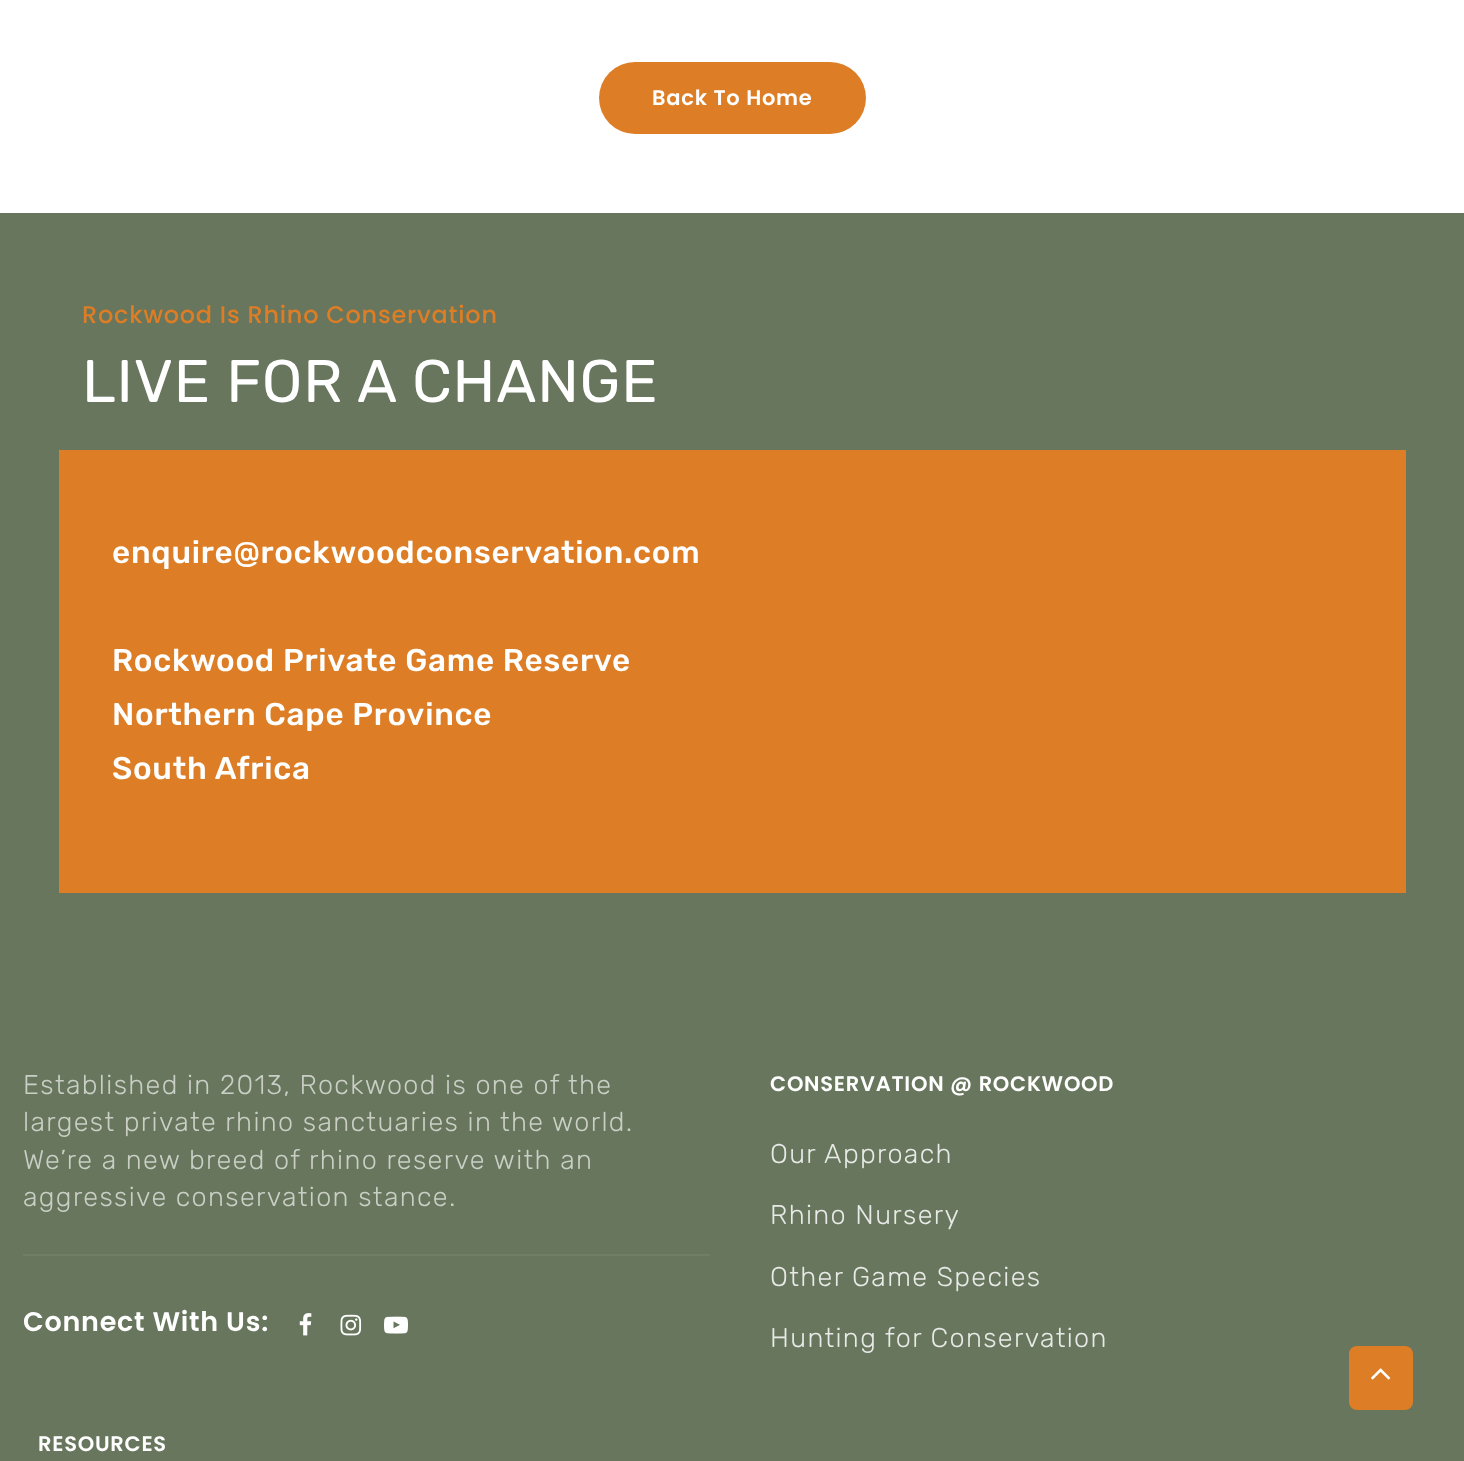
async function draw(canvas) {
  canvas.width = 1464
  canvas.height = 1461
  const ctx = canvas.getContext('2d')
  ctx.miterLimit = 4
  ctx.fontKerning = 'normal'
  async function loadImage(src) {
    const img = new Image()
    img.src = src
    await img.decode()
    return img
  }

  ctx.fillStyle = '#fff'
  ctx.fillRect(0, 0, 1464, 1461)
  ctx.fillStyle = '#dd7e26'
  ctx.beginPath()
  ctx.roundRect(599, 62, 267, 72, 36)
  ctx.fill()
  ctx.letterSpacing = '0.75px'
  ctx.font = '600 21px Poppins'
  ctx.fillStyle = '#fff'
  ctx.fillText('Back To Home', 652, 105)
  ctx.fillStyle = '#67765c'
  ctx.fillRect(0, 213, 1464, 1248)
  ctx.font = '500 24px Poppins'
  ctx.fillStyle = '#dd7e26'
  ctx.fillText('Rockwood Is Rhino Conservation', 82, 323)
  ctx.font = '60px Rubik'
  ctx.fillStyle = '#fff'
  ctx.fillText('LIVE FOR A CHANGE', 82, 402)
  ctx.fillStyle = '#dd7e26'
  ctx.fillRect(59, 450, 1347, 443)
  ctx.font = '500 31.5px Rubik'
  ctx.fillStyle = '#fff'
  ctx.fillText('enquire@rockwoodconservation.com', 112, 563)
  ctx.fillText('Rockwood Private Game Reserve', 112, 671)
  ctx.fillText('Northern Cape Province', 112, 725)
  ctx.fillText('South Africa', 112, 779)
  ctx.letterSpacing = '1.35px'
  ctx.font = '300 27px Rubik'
  ctx.fillStyle = '#cacfc6'
  ctx.fillText('Established in 2013, Rockwood is one of the', 23, 1094)
  ctx.fillText('largest private rhino sanctuaries in the world.', 23, 1131)
  ctx.fillText('We’re a new breed of rhino reserve with an', 23, 1169)
  ctx.fillText('aggressive conservation stance.', 23, 1206)
  ctx.fillStyle = '#707e66'
  ctx.fillRect(23, 1254, 687, 2)
  ctx.letterSpacing = '0.75px'
  ctx.font = '600 27px Poppins'
  ctx.fillStyle = '#fff'
  ctx.fillText('Connect With Us:', 23, 1331)
  ctx.drawImage(await loadImage('image0.png'), 299, 1313, 13, 23)
  ctx.drawImage(await loadImage('image1.png'), 340, 1314, 22, 22)
  ctx.drawImage(await loadImage('image2.png'), 384, 1316, 24, 18)
  ctx.font = '600 21px Poppins'
  ctx.fillText('CONSERVATION @ ROCKWOOD', 770, 1091)
  ctx.letterSpacing = '1.35px'
  ctx.font = '300 27px Rubik'
  ctx.fillStyle = '#e8eae7'
  ctx.fillText('Our Approach', 770, 1163)
  ctx.fillText('Rhino Nursery', 770, 1224)
  ctx.fillText('Other Game Species', 770, 1286)
  ctx.fillText('Hunting for Conservation', 770, 1347)
  ctx.letterSpacing = '0.75px'
  ctx.font = '600 21px Poppins'
  ctx.fillStyle = '#fff'
  ctx.fillText('RESOURCES', 38, 1451)
  ctx.fillStyle = '#dd7e26'
  ctx.beginPath()
  ctx.roundRect(1349, 1346, 64, 64, 8)
  ctx.fill()
  ctx.drawImage(await loadImage('image3.png'), 1371, 1368, 20, 12)
}

draw(document.querySelector('canvas'))
